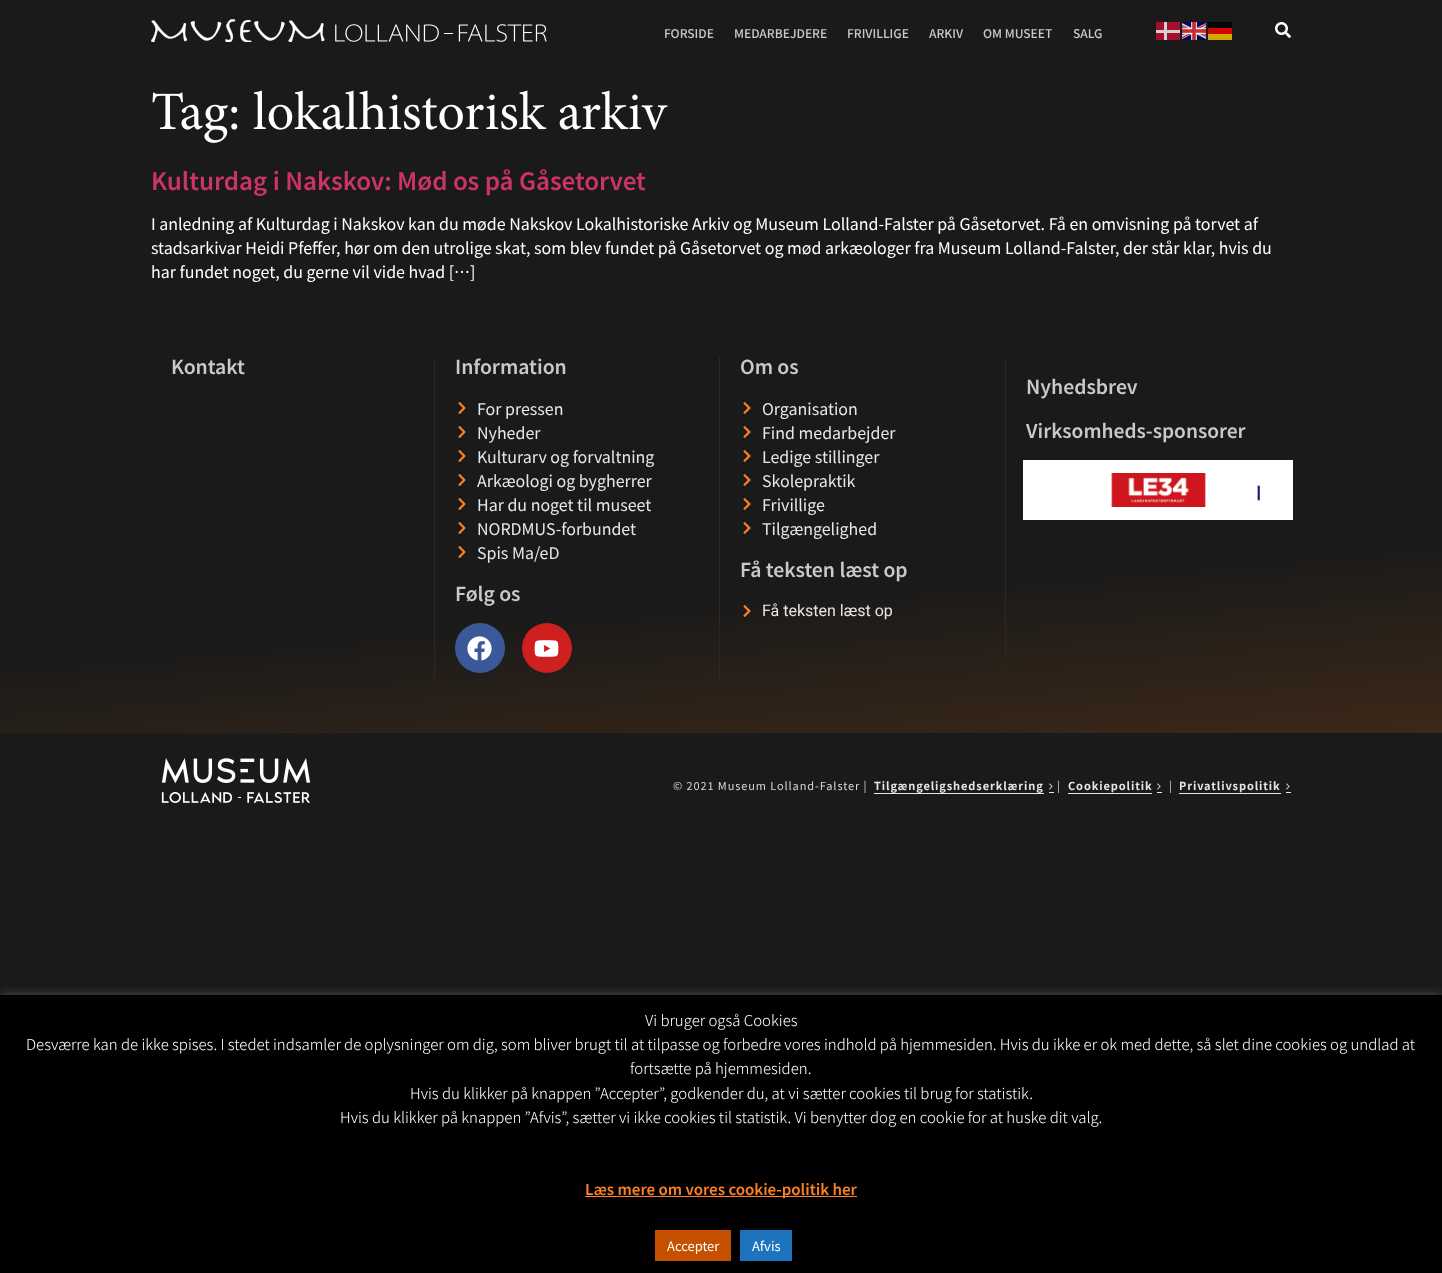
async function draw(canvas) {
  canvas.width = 1442
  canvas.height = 1273
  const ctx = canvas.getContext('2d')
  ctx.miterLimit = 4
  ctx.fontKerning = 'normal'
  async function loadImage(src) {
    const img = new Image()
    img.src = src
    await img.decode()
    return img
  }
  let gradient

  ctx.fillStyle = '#1a1a1a'
  ctx.fillRect(0, 0, 1442, 1273)
  ctx.drawImage(await loadImage('image0.png'), 151, 19, 396, 23)
  ctx.font = '500 12px Noto Sans JP'
  ctx.fillStyle = '#c9c9c9'
  ctx.fillText('FORSIDE', 664, 38)
  ctx.fillText('MEDARBEJDERE', 734, 38)
  ctx.fillText('FRIVILLIGE', 847, 38)
  ctx.fillText('ARKIV', 929, 38)
  ctx.fillText('OM MUSEET', 983, 38)
  ctx.fillText('SALG', 1073, 38)
  ctx.fillStyle = '#a40f2c'
  ctx.fillRect(1156, 22, 24, 18)
  ctx.fillStyle = '#d1d1d1'
  ctx.fillRect(1164, 22, 3, 18)
  ctx.drawImage(await loadImage('image1.png'), 1182, 22, 24, 18)
  ctx.fillStyle = '#050505'
  ctx.fillRect(1208, 22, 24, 6)
  ctx.fillStyle = '#d1d1d1'
  ctx.fillRect(1156, 30, 24, 3)
  ctx.fillStyle = '#d10505'
  ctx.fillRect(1208, 28, 24, 6)
  ctx.fillStyle = '#d1a805'
  ctx.fillRect(1208, 34, 24, 6)
  ctx.drawImage(await loadImage('image2.png'), 1275, 22, 16, 16)
  ctx.drawImage(await loadImage('image3.png'), 152, 92, 86, 51)
  ctx.drawImage(await loadImage('image4.png'), 253, 90, 415, 40)
  ctx.font = '600 24px Noto Sans JP'
  ctx.fillStyle = '#c36'
  ctx.fillText('Kulturdag i Nakskov: Mød os på Gåsetorvet', 151, 190)
  ctx.font = '16px Noto Sans JP'
  ctx.fillStyle = '#fff'
  ctx.fillText('I anledning af Kulturdag i Nakskov kan du møde Nakskov Lokalhistoriske Arkiv og Museum Lolland-Falster på Gåsetorvet. Få en omvisning på torvet af', 151, 230)
  ctx.fillText('stadsarkivar Heidi Pfeffer, hør om den utrolige skat, som blev fundet på Gåsetorvet og mød arkæologer fra Museum Lolland-Falster, der står klar, hvis du', 151, 254)
  ctx.fillText('har fundet noget, du gerne vil vide hvad […]', 151, 278)
  gradient = ctx.createLinearGradient(697, 236, 745, 794)
  gradient.addColorStop(0.65, '#1a1a1a')
  gradient.addColorStop(1, '#3c2818')
  ctx.fillStyle = gradient
  ctx.fillRect(0, 552, 1442, 181)
  ctx.fillStyle = '#32251c'
  ctx.fillRect(434, 357, 1, 326)
  ctx.font = '600 19.25px Noto Sans JP'
  ctx.fillStyle = '#c9c9c9'
  ctx.fillText('Kontakt', 171, 374)
  ctx.fillStyle = '#32251c'
  ctx.fillRect(719, 357, 1, 326)
  ctx.fillStyle = '#c9c9c9'
  ctx.fillText('Information', 455, 374)
  ctx.drawImage(await loadImage('image5.png'), 458, 402, 8, 12)
  ctx.font = '16px Noto Sans JP'
  ctx.fillStyle = '#e7e7e7'
  ctx.fillText('For pressen', 477, 415)
  ctx.drawImage(await loadImage('image5.png'), 458, 426, 8, 12)
  ctx.fillText('Nyheder', 477, 439)
  ctx.drawImage(await loadImage('image5.png'), 458, 450, 8, 12)
  ctx.fillText('Kulturarv og forvaltning', 477, 463)
  ctx.drawImage(await loadImage('image5.png'), 458, 474, 8, 12)
  ctx.fillText('Arkæologi og bygherrer', 477, 487)
  ctx.drawImage(await loadImage('image5.png'), 458, 498, 8, 12)
  ctx.fillText('Har du noget til museet', 477, 511)
  ctx.drawImage(await loadImage('image5.png'), 458, 522, 8, 12)
  ctx.fillText('NORDMUS-forbundet', 477, 535)
  ctx.drawImage(await loadImage('image5.png'), 458, 546, 8, 12)
  ctx.fillText('Spis Ma/eD', 477, 559)
  ctx.font = '600 19.25px Noto Sans JP'
  ctx.fillStyle = '#c9c9c9'
  ctx.fillText('Følg os', 455, 601)
  ctx.fillStyle = '#3b5998'
  ctx.beginPath()
  ctx.arc(480, 648, 25, 0, 2 * Math.PI)
  ctx.fill()
  ctx.drawImage(await loadImage('image6.png'), 467, 636, 25, 25)
  ctx.fillStyle = '#cd201f'
  ctx.beginPath()
  ctx.arc(547, 648, 25, 0, 2 * Math.PI)
  ctx.fill()
  ctx.drawImage(await loadImage('image7.png'), 534, 640, 25, 17)
  ctx.fillStyle = '#32251c'
  ctx.fillRect(1005, 357, 1, 326)
  ctx.fillStyle = '#c9c9c9'
  ctx.fillText('Om os', 740, 374)
  ctx.drawImage(await loadImage('image5.png'), 743, 402, 8, 12)
  ctx.font = '16px Noto Sans JP'
  ctx.fillStyle = '#e7e7e7'
  ctx.fillText('Organisation', 762, 415)
  ctx.drawImage(await loadImage('image5.png'), 743, 426, 8, 12)
  ctx.fillText('Find medarbejder', 762, 439)
  ctx.drawImage(await loadImage('image5.png'), 743, 450, 8, 12)
  ctx.fillText('Ledige stillinger', 762, 463)
  ctx.drawImage(await loadImage('image5.png'), 743, 474, 8, 12)
  ctx.fillText('Skolepraktik', 762, 487)
  ctx.drawImage(await loadImage('image5.png'), 743, 498, 8, 12)
  ctx.fillText('Frivillige', 762, 511)
  ctx.drawImage(await loadImage('image5.png'), 743, 522, 8, 12)
  ctx.fillText('Tilgængelighed', 762, 535)
  ctx.font = '600 19.25px Noto Sans JP'
  ctx.fillStyle = '#c9c9c9'
  ctx.fillText('Få teksten læst op', 740, 577)
  ctx.drawImage(await loadImage('image8.png'), 743, 605, 8, 12)
  ctx.font = '16px Roboto'
  ctx.fillStyle = '#e7e7e7'
  ctx.fillText('Få teksten læst op', 762, 616)
  ctx.font = '600 19.25px Noto Sans JP'
  ctx.fillStyle = '#c9c9c9'
  ctx.fillText('Nyhedsbrev', 1026, 394)
  ctx.font = '600 19px Noto Sans JP'
  ctx.fillText('Virksomheds-sponsorer', 1026, 438)
  ctx.fillStyle = '#fff'
  ctx.fillRect(1023, 460, 270, 60)
  ctx.drawImage(await loadImage('image9.png'), 1111, 473, 95, 34)
  ctx.drawImage(await loadImage('image10.png'), 1256, 477, 4, 24)
  ctx.drawImage(await loadImage('image11.png'), 161, 758, 150, 45)
  ctx.letterSpacing = '0.9px'
  ctx.font = '11px Noto Sans JP'
  ctx.fillStyle = '#d7d7d7'
  ctx.fillText('© 2021 Museum Lolland-Falster |', 673, 790)
  ctx.font = 'bold 11px Noto Sans JP'
  ctx.fillStyle = '#e7e7e7'
  ctx.fillText('Tilgængeligshedserklæring', 874, 790)
  ctx.fillRect(874, 793, 170, 1)
  ctx.fillRect(1049, 792, 5, 1)
  ctx.drawImage(await loadImage('image12.png'), 1049, 783, 4, 7)
  ctx.font = '11px Noto Sans JP'
  ctx.fillStyle = '#d7d7d7'
  ctx.fillText('|', 1057, 790)
  ctx.font = 'bold 11px Noto Sans JP'
  ctx.fillStyle = '#e7e7e7'
  ctx.fillText('Cookiepolitik', 1068, 790)
  ctx.fillRect(1068, 793, 84, 1)
  ctx.fillRect(1157, 792, 5, 1)
  ctx.drawImage(await loadImage('image12.png'), 1157, 783, 4, 7)
  ctx.font = '11px Noto Sans JP'
  ctx.fillStyle = '#d7d7d7'
  ctx.fillText('|', 1169, 790)
  ctx.font = 'bold 11px Noto Sans JP'
  ctx.fillStyle = '#e7e7e7'
  ctx.fillText('Privatlivspolitik', 1179, 790)
  ctx.fillRect(1179, 793, 102, 1)
  ctx.fillRect(1286, 792, 5, 1)
  ctx.drawImage(await loadImage('image12.png'), 1286, 783, 4, 7)
  ctx.fillStyle = '#acabab4d'
  ctx.filter = 'blur(5px)'
  ctx.beginPath()
  ctx.rect(0, 994, 1442, 278)
  ctx.fill()
  ctx.filter = 'none'
  ctx.fillStyle = '#000'
  ctx.fillRect(0, 995, 1442, 278)
  ctx.letterSpacing = '0px'
  ctx.font = '300 15px Noto Sans JP'
  ctx.fillStyle = '#fff'
  ctx.fillText('Vi bruger også Cookies', 645, 1026)
  ctx.fillText('Desværre kan de ikke spises. I stedet indsamler de oplysninger om dig, som bliver brugt til at tilpasse og forbedre vores indhold på hjemmesiden. Hvis du ikke er ok med dette, så slet dine cookies og undlad at', 26, 1050)
  ctx.fillText('fortsætte på hjemmesiden.', 630, 1074)
  ctx.fillText('Hvis du klikker på knappen ”Accepter”, godkender du, at vi sætter cookies til brug for statistik.', 410, 1099)
  ctx.fillText('Hvis du klikker på knappen ”Afvis”, sætter vi ikke cookies til statistik. Vi benytter dog en cookie for at huske dit valg.', 340, 1123)
  ctx.fillStyle = '#ff8023'
  ctx.fillRect(585, 1196, 272, 1)
  ctx.font = '600 15px Noto Sans JP'
  ctx.fillText('Læs mere om vores cookie-politik her', 585, 1195)
  ctx.fillStyle = '#c55100'
  ctx.fillRect(655, 1230, 76, 31)
  ctx.font = '13px Noto Sans JP'
  ctx.fillStyle = '#fff'
  ctx.fillText('Accepter', 667, 1251)
  ctx.fillStyle = '#1e73be'
  ctx.fillRect(740, 1230, 52, 31)
  ctx.fillStyle = '#fff'
  ctx.fillText('Afvis', 752, 1251)
}

draw(document.querySelector('canvas'))
